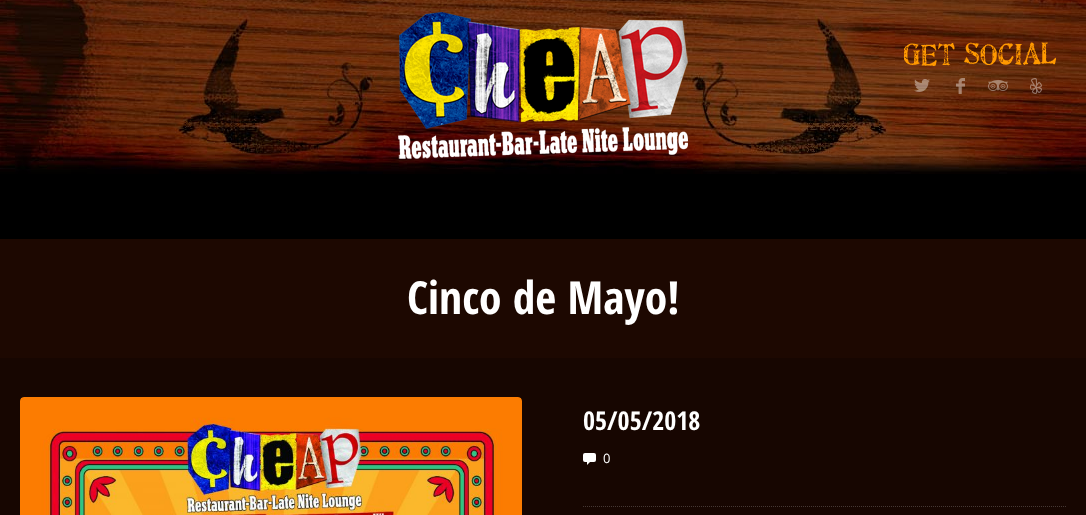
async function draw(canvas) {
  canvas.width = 1086
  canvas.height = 515
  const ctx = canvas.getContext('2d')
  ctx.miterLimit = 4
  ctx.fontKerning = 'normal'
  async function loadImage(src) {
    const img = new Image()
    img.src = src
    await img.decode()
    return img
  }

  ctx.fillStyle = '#1d0801'
  ctx.fillRect(0, 0, 1086, 515)
  ctx.drawImage(await loadImage('image0.png'), 0, 0, 1086, 174)
  ctx.drawImage(await loadImage('image1.png'), 398, 12, 290, 147)
  ctx.drawImage(await loadImage('image2.png'), 904, 42, 152, 24)
  ctx.drawImage(await loadImage('image3.png'), 914, 79, 16, 13)
  ctx.drawImage(await loadImage('image4.png'), 956, 78, 9, 16)
  ctx.drawImage(await loadImage('image5.png'), 988, 80, 20, 11)
  ctx.drawImage(await loadImage('image6.png'), 1030, 78, 12, 16)
  ctx.fillStyle = '#000'
  ctx.fillRect(0, 174, 1086, 65)
  ctx.font = 'bold 45.5px Open Sans Condensed'
  ctx.fillStyle = '#fff'
  ctx.fillText('Cinco de Mayo!', 407, 314)
  ctx.fillStyle = '#170601'
  ctx.fillRect(0, 358, 1086, 157)
  ctx.drawImage(await loadImage('image7.png'), 20, 397, 502, 118)
  ctx.font = 'bold 26px Open Sans Condensed'
  ctx.fillStyle = '#fff'
  ctx.fillText('05/05/2018', 583, 430)
  ctx.beginPath()
  ctx.roundRect(583, 453, 13, 9, 2)
  ctx.fill()
  ctx.beginPath()
  ctx.moveTo(587, 465)
  ctx.lineTo(587, 462)
  ctx.lineTo(590, 462)
  ctx.closePath()
  ctx.fill()
  ctx.font = '13px Open Sans'
  ctx.fillText('0', 603, 463)
  ctx.beginPath()
  ctx.moveTo(583, 506.5)
  ctx.lineTo(1066, 506.5)
  ctx.strokeStyle = '#453834'
  ctx.setLineDash([1, 1])
  ctx.stroke()
}

draw(document.querySelector('canvas'))
